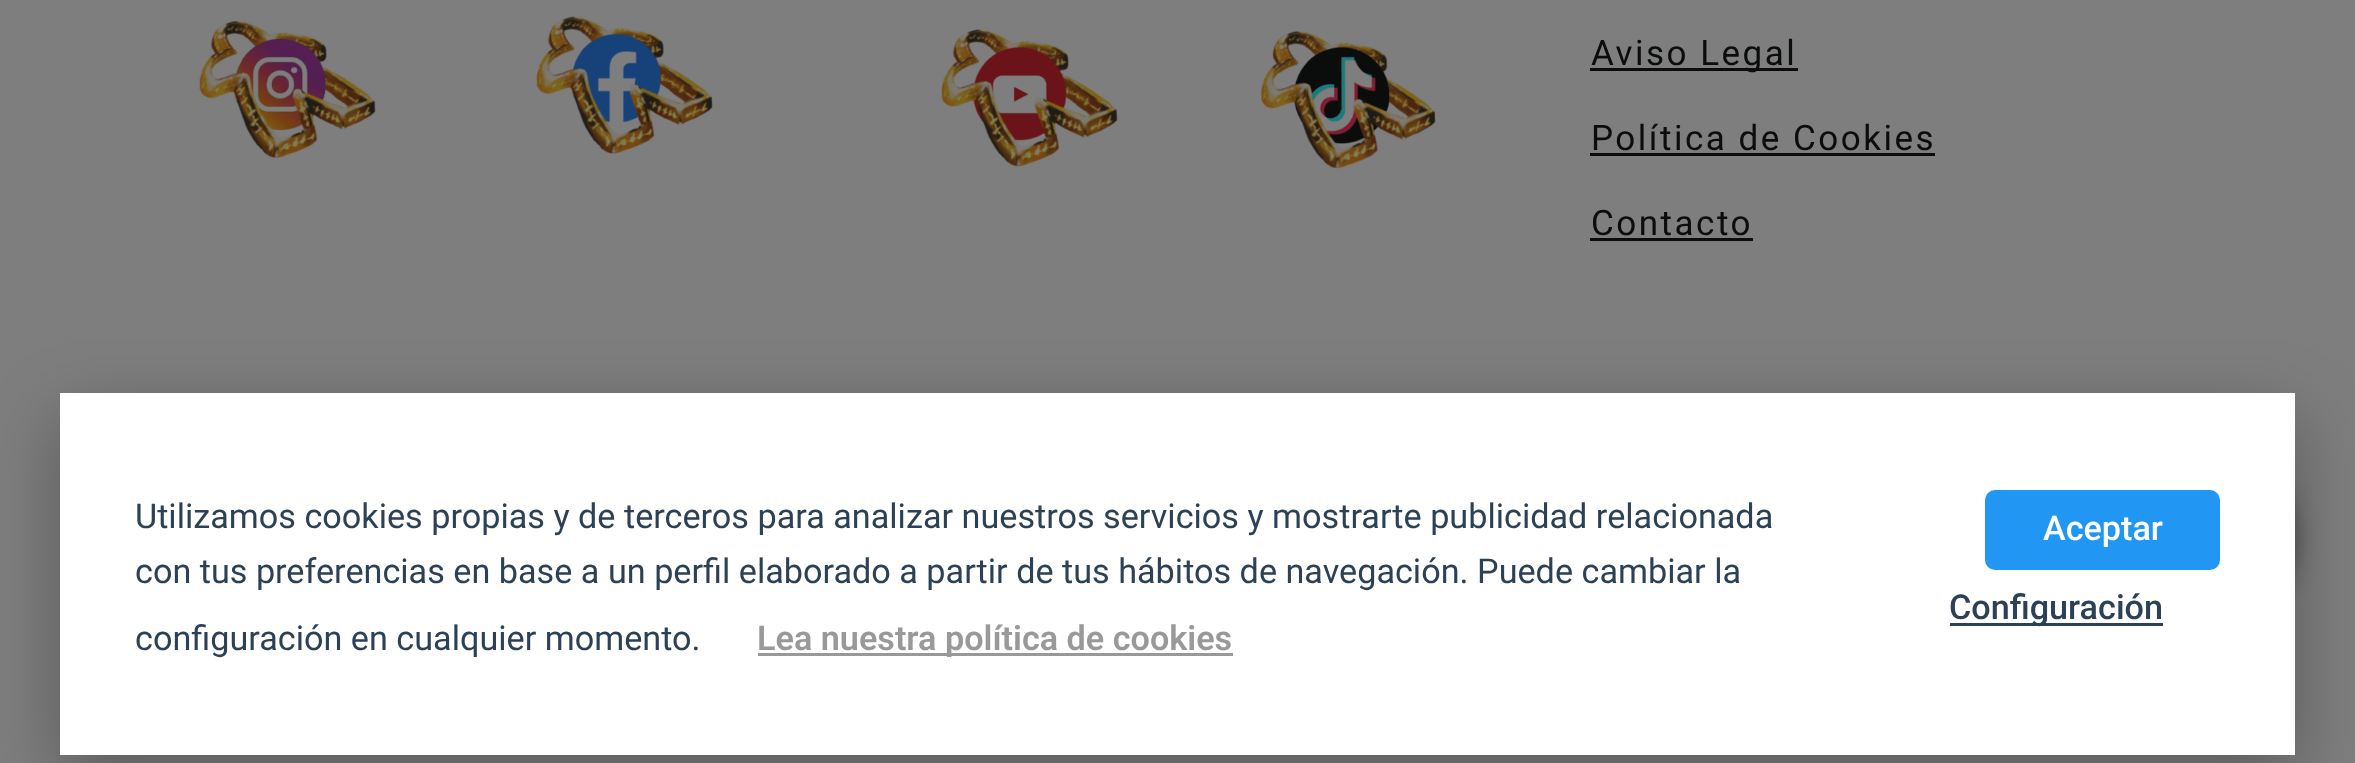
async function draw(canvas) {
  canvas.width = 2355
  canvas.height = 763
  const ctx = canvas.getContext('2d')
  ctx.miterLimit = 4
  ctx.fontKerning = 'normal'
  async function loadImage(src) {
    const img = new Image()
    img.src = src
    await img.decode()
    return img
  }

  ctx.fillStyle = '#7e7e7f'
  ctx.fillRect(0, 0, 2355, 763)
  ctx.drawImage(await loadImage('image0.png'), 199, 20, 177, 139)
  ctx.drawImage(await loadImage('image1.png'), 536, 16, 177, 138)
  ctx.drawImage(await loadImage('image2.png'), 941, 29, 177, 138)
  ctx.drawImage(await loadImage('image3.png'), 1260, 31, 176, 138)
  ctx.fillStyle = '#0b0c0c'
  ctx.fillRect(1590, 68, 208, 3)
  ctx.letterSpacing = '2.5px'
  ctx.font = '35px Roboto'
  ctx.fillText('Aviso Legal', 1591, 65)
  ctx.fillText('Política de Cookies', 1591, 150)
  ctx.fillRect(1590, 153, 345, 3)
  ctx.fillText('Contacto', 1591, 235)
  ctx.fillRect(1590, 238, 163, 3)
  ctx.fillStyle = '#02020347'
  ctx.filter = 'blur(35.5px)'
  ctx.beginPath()
  ctx.rect(60, 415, 2235, 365)
  ctx.fill()
  ctx.filter = 'none'
  ctx.fillStyle = '#0b0c0c80'
  ctx.filter = 'blur(12.5px)'
  ctx.beginPath()
  ctx.roundRect(2135, 458, 160, 160, 80)
  ctx.fill()
  ctx.filter = 'none'
  ctx.fillStyle = '#fff'
  ctx.fillRect(60, 393, 2235, 362)
  ctx.letterSpacing = '0px'
  ctx.font = '34.2px Roboto'
  ctx.fillStyle = '#2d4156'
  ctx.fillText('Utilizamos cookies propias y de terceros para analizar nuestros servicios y mostrarte publicidad relacionada', 135, 528)
  ctx.fillText('con tus preferencias en base a un perfil elaborado a partir de tus hábitos de navegación. Puede cambiar la', 135, 583)
  ctx.fillText('configuración en cualquier momento.', 135, 650)
  ctx.fillStyle = '#999'
  ctx.fillRect(758, 653, 475, 3)
  ctx.font = '600 34.2px Roboto'
  ctx.fillText('Lea nuestra política de cookies', 757, 650)
  ctx.fillStyle = '#2196f3'
  ctx.beginPath()
  ctx.roundRect(1985, 490, 235, 80, 10)
  ctx.fill()
  ctx.font = '500 34.2px Roboto'
  ctx.fillStyle = '#fff'
  ctx.fillText('Aceptar', 2043, 540)
  ctx.fillStyle = '#2d4156'
  ctx.fillRect(1950, 623, 213, 3)
  ctx.fillText('Configuración', 1949, 619)
}

draw(document.querySelector('canvas'))
